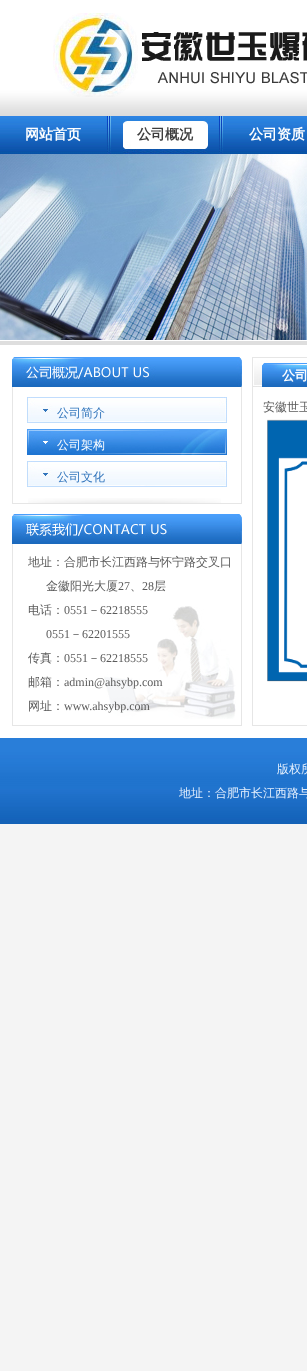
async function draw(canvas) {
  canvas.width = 307
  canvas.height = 1371
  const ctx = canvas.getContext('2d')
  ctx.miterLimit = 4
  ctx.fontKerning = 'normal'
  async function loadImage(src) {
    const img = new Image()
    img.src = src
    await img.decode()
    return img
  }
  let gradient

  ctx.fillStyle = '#f4f4f4'
  ctx.fillRect(0, 0, 307, 1371)
  ctx.drawImage(await loadImage('image0.png'), 0, 0, 307, 116)
  ctx.drawImage(await loadImage('image1.png'), 53, 13, 254, 84)
  gradient = ctx.createLinearGradient(-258, 46, 132, 46)
  gradient.addColorStop(0.93, '#ffffff00')
  gradient.addColorStop(0.95, '#ffffff66')
  gradient.addColorStop(0.97, '#ffffffcc')
  gradient.addColorStop(0.99, '#ffffff4d')
  gradient.addColorStop(1, '#ffffff00')
  ctx.fillStyle = gradient
  ctx.beginPath()
  ctx.moveTo(-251, 30)
  ctx.lineTo(139, 30)
  ctx.lineTo(125, 62)
  ctx.lineTo(-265, 62)
  ctx.closePath()
  ctx.fill()
  gradient = ctx.createLinearGradient(-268, 78, 122, 78)
  gradient.addColorStop(0.93, '#ffffff00')
  gradient.addColorStop(0.95, '#ffffff66')
  gradient.addColorStop(0.97, '#ffffffcc')
  gradient.addColorStop(0.99, '#ffffff4d')
  gradient.addColorStop(1, '#ffffff00')
  ctx.fillStyle = gradient
  ctx.beginPath()
  ctx.moveTo(-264, 70)
  ctx.lineTo(126, 70)
  ctx.lineTo(118, 86)
  ctx.lineTo(-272, 86)
  ctx.closePath()
  ctx.fill()
  ctx.drawImage(await loadImage('image2.png'), 0, 116, 307, 38)
  ctx.font = 'bold 14px WenQuanYi Zen Hei'
  ctx.fillStyle = '#fff'
  ctx.fillText('网站首页', 25, 139)
  ctx.drawImage(await loadImage('image3.png'), 107, 116, 4, 38)
  ctx.drawImage(await loadImage('image4.png'), 123, 117, 85, 37)
  ctx.fillStyle = '#3d3d3d'
  ctx.fillText('公司概况', 137, 139)
  ctx.drawImage(await loadImage('image3.png'), 219, 116, 4, 38)
  ctx.fillStyle = '#fff'
  ctx.fillText('公司资质', 249, 139)
  ctx.fillRect(0, 340, 307, 398)
  ctx.drawImage(await loadImage('image5.png'), 0, 154, 307, 186)
  ctx.fillStyle = '#dedede'
  ctx.fillRect(0, 341, 307, 4)
  ctx.strokeStyle = '#e6e6e6'
  ctx.strokeRect(252.5, 357.5, 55, 368)
  ctx.drawImage(await loadImage('image6.png'), 253, 360, 54, 27)
  ctx.font = 'bold 13px WenQuanYi Zen Hei'
  ctx.fillStyle = '#fff'
  ctx.fillText('公司', 282, 380)
  ctx.font = '500 12px WenQuanYi Zen Hei'
  ctx.fillStyle = '#5b5b5b'
  ctx.fillText('安徽世玉', 263, 411)
  ctx.drawImage(await loadImage('image7.png'), 267, 419, 40, 263)
  ctx.drawImage(await loadImage('image8.png'), 28, 498, 193, 5)
  ctx.drawImage(await loadImage('image9.png'), 12, 357, 230, 30)
  ctx.fillStyle = '#e6e6e6'
  ctx.fillRect(241, 387, 1, 117)
  ctx.fillRect(12, 503, 230, 1)
  ctx.fillRect(12, 387, 1, 117)
  ctx.drawImage(await loadImage('image10.png'), 27, 397, 200, 26)
  ctx.fillStyle = '#3175bc'
  ctx.fillText('公司简介', 57, 417)
  ctx.drawImage(await loadImage('image11.png'), 27, 429, 200, 26)
  ctx.fillStyle = '#fff'
  ctx.fillText('公司架构', 57, 449)
  ctx.drawImage(await loadImage('image10.png'), 27, 461, 200, 26)
  ctx.fillStyle = '#3175bc'
  ctx.fillText('公司文化', 57, 481)
  ctx.drawImage(await loadImage('image12.png'), 12, 514, 230, 30)
  ctx.drawImage(await loadImage('image13.png'), 104, 606, 132, 113)
  ctx.fillStyle = '#e6e6e6'
  ctx.fillRect(241, 544, 1, 182)
  ctx.fillRect(12, 725, 230, 1)
  ctx.fillRect(12, 544, 1, 182)
  ctx.fillStyle = '#5b5b5b'
  ctx.fillText('地址：合肥市长江西路与怀宁路交叉口', 28, 566)
  ctx.fillText('金徽阳光大厦', 46, 590)
  ctx.font = '12px Liberation Serif'
  ctx.fillText('27', 118, 590)
  ctx.font = '500 12px WenQuanYi Zen Hei'
  ctx.fillText('、', 130, 590)
  ctx.font = '12px Liberation Serif'
  ctx.fillText('28', 142, 590)
  ctx.font = '500 12px WenQuanYi Zen Hei'
  ctx.fillText('层', 154, 590)
  ctx.fillText('电话：', 28, 614)
  ctx.font = '12px Liberation Serif'
  ctx.fillText('0551', 64, 614)
  ctx.font = '500 12px WenQuanYi Zen Hei'
  ctx.fillText('－', 88, 614)
  ctx.font = '12px Liberation Serif'
  ctx.fillText('62218555', 100, 614)
  ctx.fillText('0551', 46, 638)
  ctx.font = '500 12px WenQuanYi Zen Hei'
  ctx.fillText('－', 70, 638)
  ctx.font = '12px Liberation Serif'
  ctx.fillText('62201555', 82, 638)
  ctx.font = '500 12px WenQuanYi Zen Hei'
  ctx.fillText('传真：', 28, 662)
  ctx.font = '12px Liberation Serif'
  ctx.fillText('0551', 64, 662)
  ctx.font = '500 12px WenQuanYi Zen Hei'
  ctx.fillText('－', 88, 662)
  ctx.font = '12px Liberation Serif'
  ctx.fillText('62218555', 100, 662)
  ctx.font = '500 12px WenQuanYi Zen Hei'
  ctx.fillText('邮箱：', 28, 686)
  ctx.font = '12px Liberation Serif'
  ctx.fillText('admin@ahsybp.com', 64, 686)
  ctx.font = '500 12px WenQuanYi Zen Hei'
  ctx.fillText('网址：', 28, 710)
  ctx.font = '12px Liberation Serif'
  ctx.fillText('www.ahsybp.com', 64, 710)
  ctx.drawImage(await loadImage('image14.png'), 0, 738, 307, 86)
  ctx.font = '500 12px WenQuanYi Zen Hei'
  ctx.fillStyle = '#e3effd'
  ctx.fillText('版权所', 277, 773)
  ctx.fillText('地址：合肥市长江西路与', 179, 797)
}

draw(document.querySelector('canvas'))
